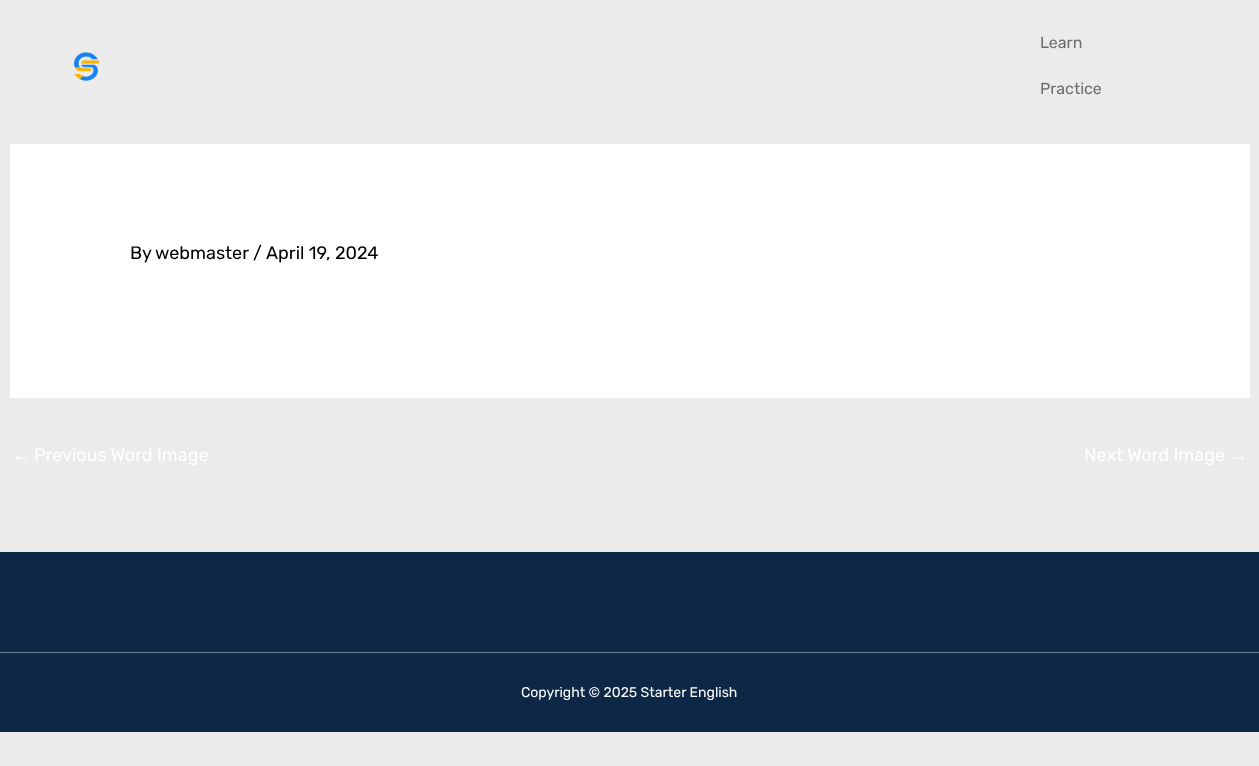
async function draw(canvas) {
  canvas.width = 1259
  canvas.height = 766
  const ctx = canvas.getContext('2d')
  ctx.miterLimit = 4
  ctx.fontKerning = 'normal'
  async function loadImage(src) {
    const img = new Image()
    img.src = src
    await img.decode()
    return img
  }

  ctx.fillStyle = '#ebebeb'
  ctx.fillRect(0, 0, 1259, 766)
  ctx.drawImage(await loadImage('image0.png'), 74, 52, 26, 29)
  ctx.font = '16px Rubik'
  ctx.fillStyle = '#6f6f6f'
  ctx.fillText('Learn', 1040, 48)
  ctx.fillText('Practice', 1040, 94)
  ctx.fillStyle = '#fff'
  ctx.fillRect(10, 144, 1240, 254)
  ctx.font = '18px Rubik'
  ctx.fillStyle = '#030000'
  ctx.fillText('By', 130, 259)
  ctx.fillText('webmaster /', 155, 259)
  ctx.fillText('April 19, 2024', 266, 259)
  ctx.font = '18px Liberation Sans'
  ctx.fillStyle = '#fff'
  ctx.fillText('←', 12, 461)
  ctx.font = '18px Rubik'
  ctx.fillText('Previous Word Image', 34, 461)
  ctx.fillText('Next Word Image', 1084, 461)
  ctx.font = '18px Liberation Sans'
  ctx.fillText('→', 1230, 461)
  ctx.fillStyle = '#0d2846'
  ctx.fillRect(0, 552, 1259, 180)
  ctx.fillStyle = '#6e7e90'
  ctx.fillRect(0, 652, 1259, 1)
  ctx.font = '14px Rubik'
  ctx.fillStyle = '#fff'
  ctx.fillText('Copyright © 2025 Starter English', 521, 697)
}

draw(document.querySelector('canvas'))
